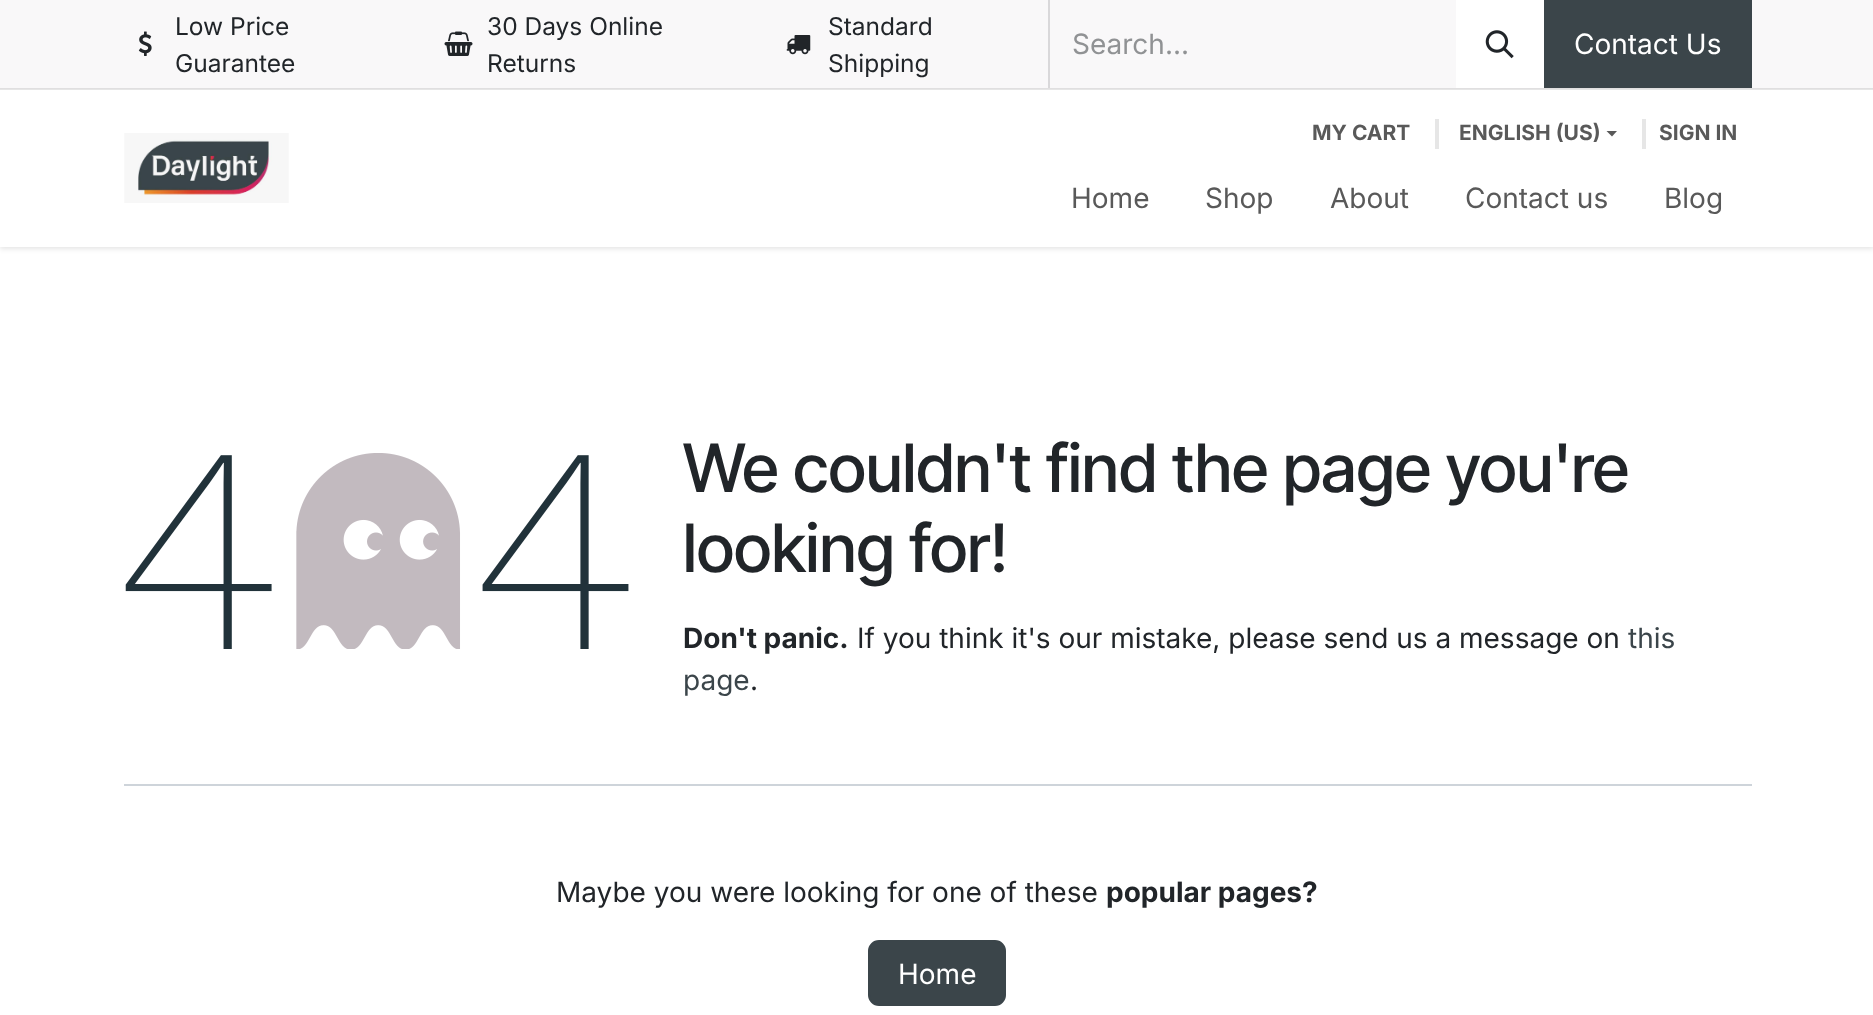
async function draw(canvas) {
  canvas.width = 1873
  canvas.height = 1015
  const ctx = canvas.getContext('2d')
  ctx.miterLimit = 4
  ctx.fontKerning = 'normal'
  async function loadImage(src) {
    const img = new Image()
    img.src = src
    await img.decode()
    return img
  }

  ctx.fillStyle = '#fff'
  ctx.fillRect(0, 0, 1873, 1015)
  ctx.fillStyle = '#0000001a'
  ctx.filter = 'blur(2.5px)'
  ctx.beginPath()
  ctx.rect(0, 2, 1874, 247)
  ctx.fill()
  ctx.filter = 'none'
  ctx.fillStyle = '#fff'
  ctx.fillRect(0, 90, 1873, 157)
  ctx.fillStyle = '#e6e6e6'
  ctx.fillRect(0, 89, 1873, 1)
  ctx.fillStyle = '#f9f8f9'
  ctx.fillRect(0, 0, 1873, 88)
  ctx.fillStyle = '#e0dfe0'
  ctx.fillRect(0, 88, 1873, 1)
  ctx.font = '24.5px Inter'
  ctx.fillStyle = '#212529'
  ctx.fillText('Low Price', 175, 35)
  ctx.drawImage(await loadImage('image0.png'), 138, 31, 14, 25)
  ctx.fillText('Guarantee', 175, 72)
  ctx.fillText('30 Days Online', 487, 35)
  ctx.drawImage(await loadImage('image1.png'), 444, 31, 29, 25)
  ctx.fillText('Returns', 487, 72)
  ctx.fillText('Standard', 828, 35)
  ctx.drawImage(await loadImage('image2.png'), 786, 35, 25, 20)
  ctx.fillText('Shipping', 828, 72)
  ctx.fillStyle = '#d9d8da'
  ctx.fillRect(1048, 0, 2, 88)
  ctx.font = '28px Inter'
  ctx.fillStyle = '#909294'
  ctx.fillText('Search...', 1072, 54)
  ctx.fillStyle = '#fff'
  ctx.fillRect(1456, 0, 88, 88)
  ctx.drawImage(await loadImage('image3.png'), 1485, 30, 29, 29)
  ctx.fillStyle = '#3b454a'
  ctx.fillRect(1544, 0, 208, 88)
  ctx.fillStyle = '#fff'
  ctx.fillText('Contact Us', 1574, 54)
  ctx.drawImage(await loadImage('image4.png'), 124, 133, 165, 70)
  ctx.font = 'bold 21px Inter'
  ctx.fillStyle = '#595959'
  ctx.fillText('MY CART', 1312, 140)
  ctx.fillStyle = '#e6e6e6'
  ctx.fillRect(1435, 119, 4, 30)
  ctx.fillStyle = '#595959'
  ctx.fillText('ENGLISH (US)', 1459, 140)
  ctx.beginPath()
  ctx.moveTo(1606.5, 131)
  ctx.lineTo(1617, 131)
  ctx.lineTo(1612, 136.5)
  ctx.closePath()
  ctx.fill()
  ctx.fillStyle = '#e6e6e6'
  ctx.fillRect(1642, 119, 4, 30)
  ctx.fillStyle = '#595959'
  ctx.fillText('SIGN IN', 1659, 140)
  ctx.font = '28px Inter'
  ctx.fillText('Home', 1071, 208)
  ctx.fillText('Shop', 1205, 208)
  ctx.fillText('About', 1330, 208)
  ctx.fillText('Contact us', 1465, 208)
  ctx.fillText('Blog', 1664, 208)
  ctx.drawImage(await loadImage('image5.png'), 125, 453, 504, 196)
  ctx.font = '500 66.6px Inter Tight'
  ctx.fillStyle = '#212529'
  ctx.fillText('We couldn\'t find the page you\'re', 683, 492)
  ctx.fillText('looking for!', 683, 572)
  ctx.font = 'bold 28px Inter'
  ctx.fillText('Don\'t panic.', 683, 648)
  ctx.font = '28px Inter'
  ctx.fillText('If you think it\'s our mistake, please send us a message on', 857, 648)
  ctx.fillStyle = '#3b454a'
  ctx.fillText('this', 1628, 648)
  ctx.fillText('page', 683, 690)
  ctx.fillStyle = '#212529'
  ctx.fillText('.', 750, 690)
  ctx.fillStyle = '#ced4da'
  ctx.fillRect(124, 784, 1628, 2)
  ctx.fillStyle = '#212529'
  ctx.fillText('Maybe you were looking for one of these', 556, 902)
  ctx.font = 'bold 28px Inter'
  ctx.fillText('popular pages?', 1106, 902)
  ctx.fillStyle = '#3b454a'
  ctx.beginPath()
  ctx.roundRect(869, 941, 136, 64, 10)
  ctx.fill()
  ctx.strokeStyle = '#3b454a'
  ctx.lineWidth = 2
  ctx.stroke()
  ctx.font = '28px Inter'
  ctx.fillStyle = '#fff'
  ctx.fillText('Home', 898, 984)
}

draw(document.querySelector('canvas'))
